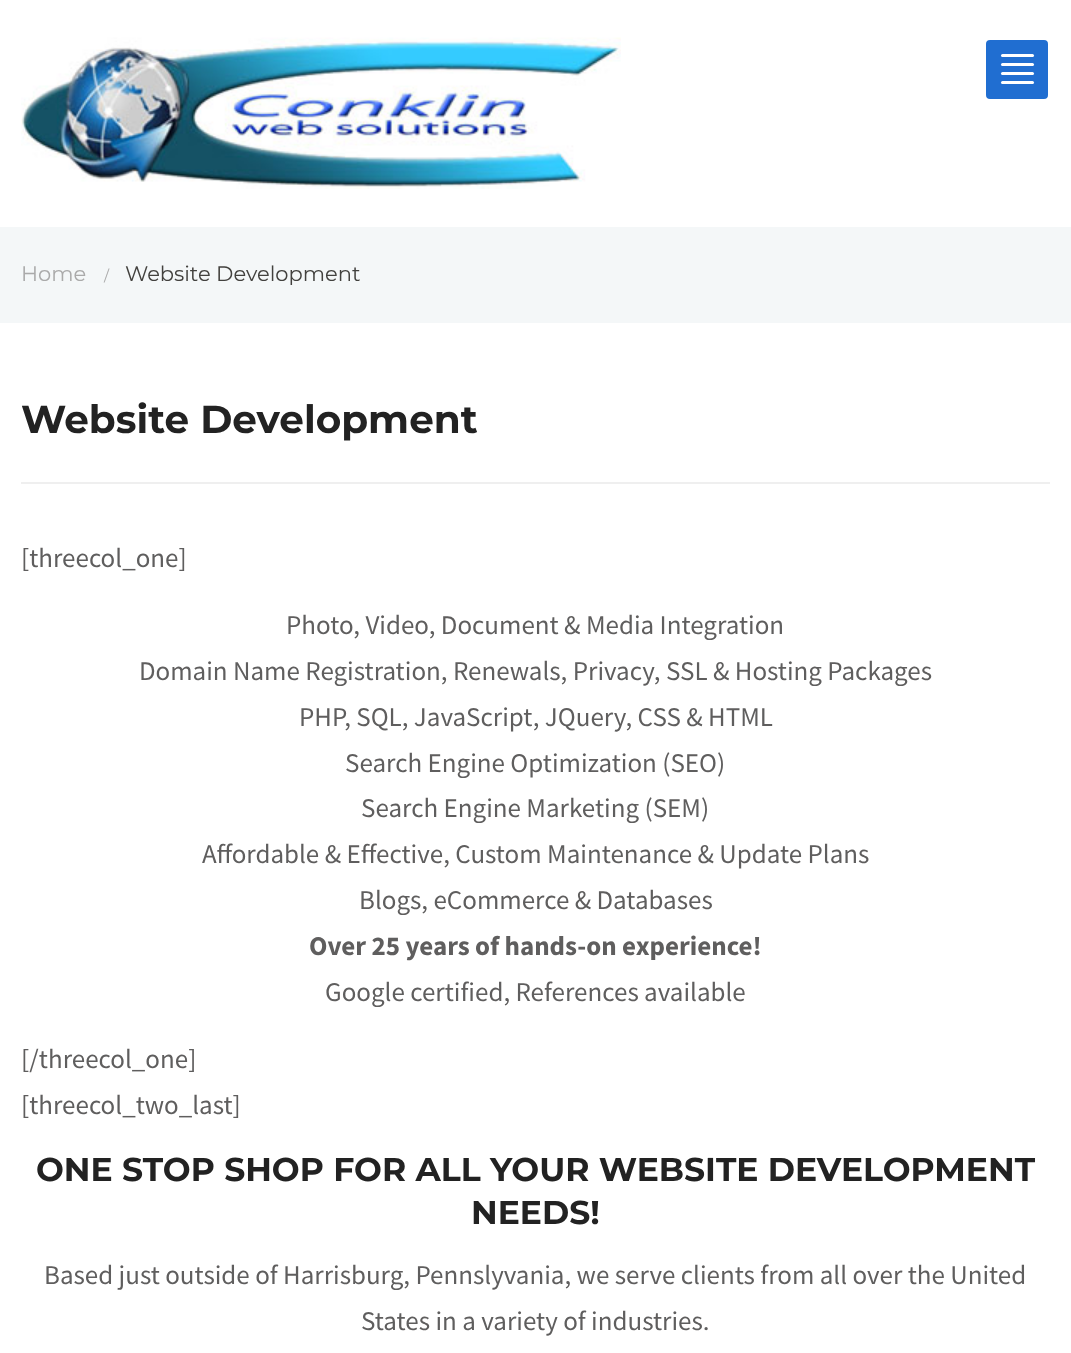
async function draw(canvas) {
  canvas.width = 1071
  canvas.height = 1353
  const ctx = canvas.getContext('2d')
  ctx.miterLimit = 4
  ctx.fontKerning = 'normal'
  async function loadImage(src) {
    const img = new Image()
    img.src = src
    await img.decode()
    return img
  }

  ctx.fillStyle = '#fff'
  ctx.fillRect(0, 0, 1071, 1353)
  ctx.drawImage(await loadImage('image0.png'), 21, 37, 600, 152)
  ctx.fillStyle = '#206ed1'
  ctx.beginPath()
  ctx.roundRect(985, 39, 64, 61, 5)
  ctx.fill()
  ctx.strokeStyle = '#fff'
  ctx.lineWidth = 2
  ctx.stroke()
  ctx.fillStyle = '#fff'
  ctx.beginPath()
  ctx.roundRect(1001, 54, 33, 3, 1.5)
  ctx.fill()
  ctx.beginPath()
  ctx.roundRect(1001, 63, 33, 3, 1.5)
  ctx.fill()
  ctx.beginPath()
  ctx.roundRect(1001, 72, 33, 3, 1.5)
  ctx.fill()
  ctx.beginPath()
  ctx.roundRect(1001, 81, 33, 3, 1.5)
  ctx.fill()
  ctx.fillStyle = '#f4f7f8'
  ctx.fillRect(0, 227, 1071, 96)
  ctx.font = '21px Montserrat'
  ctx.fillStyle = '#aaa'
  ctx.fillText('Home', 21, 281)
  ctx.font = '15px Montserrat'
  ctx.fillText('/', 104, 281)
  ctx.font = '21px Montserrat'
  ctx.fillStyle = '#42413e'
  ctx.fillText('Website Development', 125, 281)
  ctx.fillStyle = '#efefef'
  ctx.fillRect(21, 482, 1029, 2)
  ctx.font = 'bold 39px Montserrat'
  ctx.fillStyle = '#222'
  ctx.fillText('Website Development', 21, 433)
  ctx.font = '27px Source Sans Pro'
  ctx.fillStyle = '#5f5e5e'
  ctx.fillText('[threecol_one]', 21, 567)
  ctx.fillText('Photo, Video, Document & Media Integration', 286, 634)
  ctx.fillText('Domain Name Registration, Renewals, Privacy, SSL & Hosting Packages', 139, 680)
  ctx.fillText('PHP, SQL, JavaScript, JQuery, CSS & HTML', 299, 726)
  ctx.fillText('Search Engine Optimization (SEO)', 345, 772)
  ctx.fillText('Search Engine Marketing (SEM)', 361, 817)
  ctx.fillText('Affordable & Effective, Custom Maintenance & Update Plans', 202, 863)
  ctx.fillText('Blogs, eCommerce & Databases', 359, 909)
  ctx.font = 'bold 27px Source Sans Pro'
  ctx.fillText('Over 25 years of hands-on experience!', 309, 955)
  ctx.font = '27px Source Sans Pro'
  ctx.fillText('Google certified, References available', 325, 1001)
  ctx.fillText('[/threecol_one]', 21, 1068)
  ctx.fillText('[threecol_two_last]', 21, 1114)
  ctx.font = 'bold 33px Montserrat'
  ctx.fillStyle = '#222'
  ctx.fillText('ONE STOP SHOP FOR ALL YOUR WEBSITE DEVELOPMENT', 36, 1181)
  ctx.fillText('NEEDS!', 471, 1224)
  ctx.font = '27px Source Sans Pro'
  ctx.fillStyle = '#5f5e5e'
  ctx.fillText('Based just outside of Harrisburg, Pennslyvania, we serve clients from all over the United', 44, 1284)
  ctx.fillText('States in a variety of industries.', 361, 1330)
}

draw(document.querySelector('canvas'))
